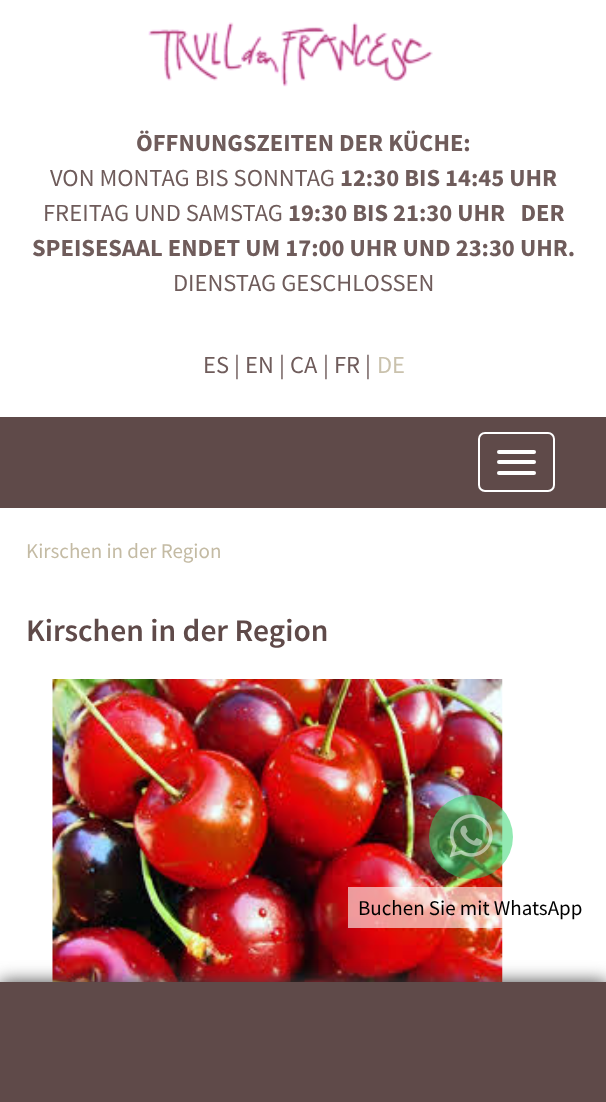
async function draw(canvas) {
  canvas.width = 606
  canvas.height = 1102
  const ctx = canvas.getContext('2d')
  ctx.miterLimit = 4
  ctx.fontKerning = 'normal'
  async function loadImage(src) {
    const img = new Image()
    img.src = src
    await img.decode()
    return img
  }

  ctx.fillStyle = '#fff'
  ctx.fillRect(0, 0, 606, 1102)
  ctx.drawImage(await loadImage('image0.png'), 148, 22, 285, 65)
  ctx.font = 'bold 24.5px Source Sans Pro'
  ctx.fillStyle = '#6f5c5b'
  ctx.fillText('ÖFFNUNGSZEITEN DER KÜCHE:', 136, 151)
  ctx.font = '24.5px Source Sans Pro'
  ctx.fillText('VON MONTAG BIS SONNTAG', 50, 186)
  ctx.font = 'bold 24.5px Source Sans Pro'
  ctx.fillText('12:30 BIS 14:45 UHR', 340, 186)
  ctx.font = '24.5px Source Sans Pro'
  ctx.fillText('FREITAG UND SAMSTAG', 43, 221)
  ctx.font = 'bold 24.5px Source Sans Pro'
  ctx.fillText('19:30 BIS 21:30 UHR   DER', 288, 221)
  ctx.fillText('SPEISESAAL ENDET UM 17:00 UHR UND 23:30 UHR.', 32, 256)
  ctx.font = '24.5px Source Sans Pro'
  ctx.fillText('DIENSTAG GESCHLOSSEN', 173, 291)
  ctx.font = '24.5px "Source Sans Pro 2"'
  ctx.fillText('ES', 203, 373)
  ctx.fillText('|', 234, 373)
  ctx.fillText('EN', 245, 373)
  ctx.fillText('|', 279, 373)
  ctx.fillText('CA', 290, 373)
  ctx.fillText('|', 323, 373)
  ctx.fillText('FR', 334, 373)
  ctx.fillText('|', 365, 373)
  ctx.fillStyle = '#cac2ad'
  ctx.fillText('DE', 377, 373)
  ctx.fillStyle = '#5f4a49'
  ctx.fillRect(0, 417, 606, 91)
  ctx.beginPath()
  ctx.roundRect(479, 433, 75, 58, 6)
  ctx.strokeStyle = '#fff'
  ctx.lineWidth = 2
  ctx.stroke()
  ctx.fillStyle = '#fff'
  ctx.beginPath()
  ctx.roundRect(497, 450, 39, 4, 2)
  ctx.fill()
  ctx.beginPath()
  ctx.roundRect(497, 460, 39, 4, 2)
  ctx.fill()
  ctx.beginPath()
  ctx.roundRect(497, 471, 39, 4, 2)
  ctx.fill()
  ctx.font = '21px "Source Sans Pro 2"'
  ctx.fillStyle = '#c4bba4'
  ctx.fillText('Kirschen in der Region', 26, 558)
  ctx.font = '600 31.5px Source Sans Pro'
  ctx.fillStyle = '#5f4a49'
  ctx.fillText('Kirschen in der Region', 26, 641)
  ctx.drawImage(await loadImage('image1.png'), 52, 679, 451, 303)
  ctx.fillStyle = '#25d36680'
  ctx.beginPath()
  ctx.arc(471, 837, 42, 0, 2 * Math.PI)
  ctx.fill()
  ctx.drawImage(await loadImage('image2.png'), 449, 814, 44, 43)
  ctx.fillStyle = '#ffffff99'
  ctx.fillRect(348, 887, 155, 41)
  ctx.font = '21px "Source Sans Pro 2"'
  ctx.fillStyle = '#000'
  ctx.fillText('Buchen Sie mit WhatsApp', 358, 915)
  ctx.fillStyle = '#444'
  ctx.filter = 'blur(9px)'
  ctx.beginPath()
  ctx.rect(0, 982, 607, 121)
  ctx.fill()
  ctx.filter = 'none'
  ctx.fillStyle = '#5f4a49'
  ctx.fillRect(0, 982, 606, 120)
}

draw(document.querySelector('canvas'))
